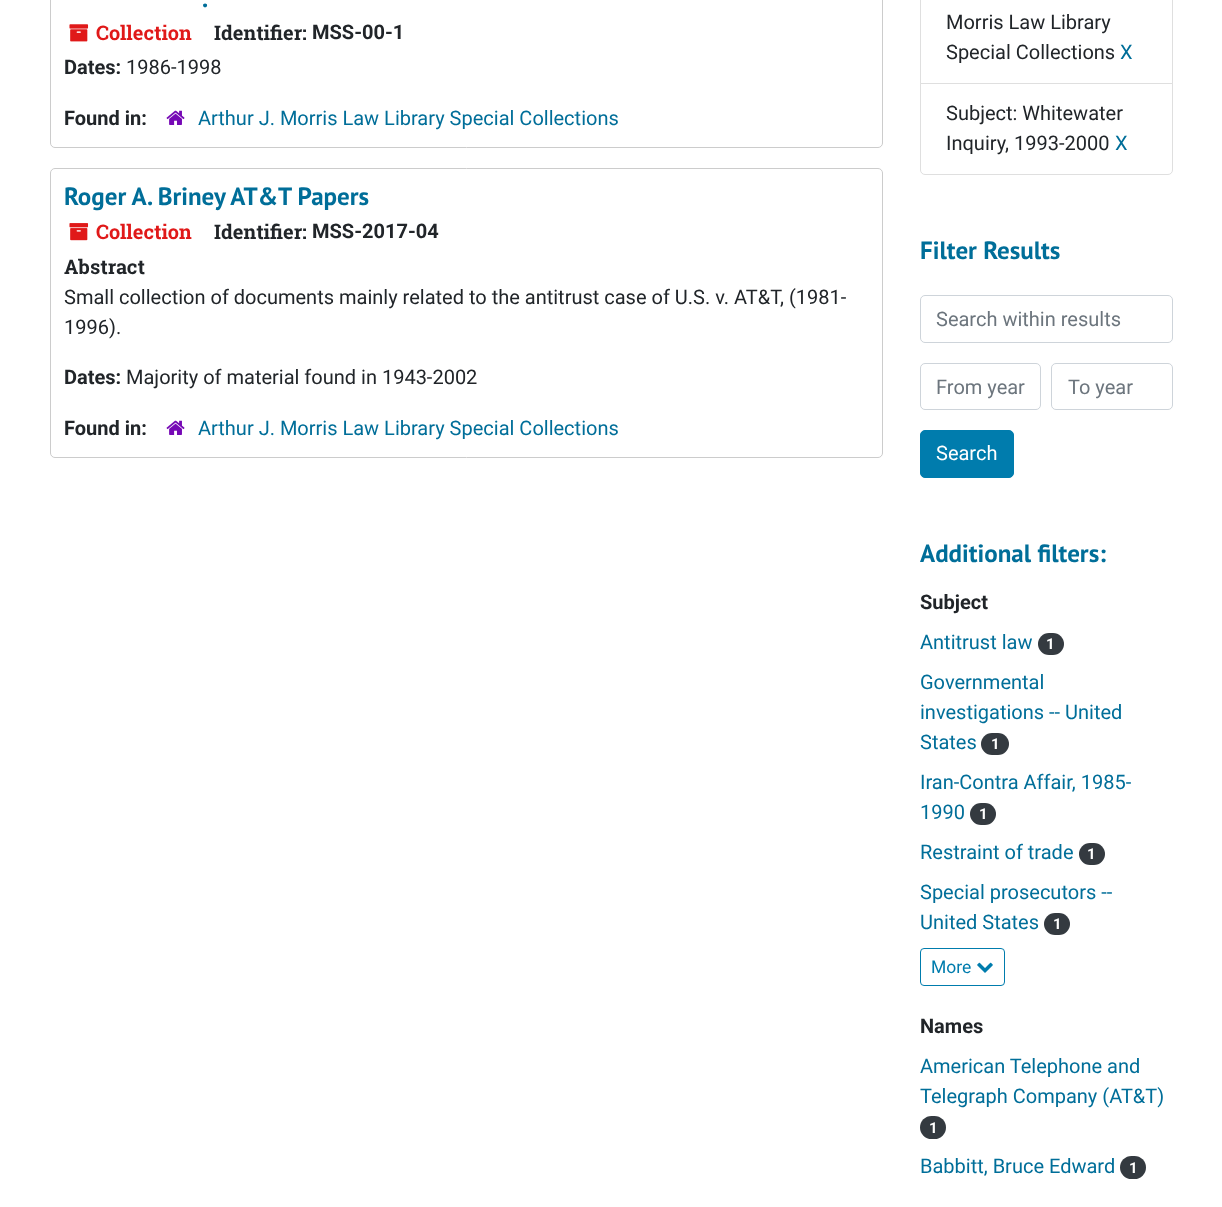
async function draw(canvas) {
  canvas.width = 1222
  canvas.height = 1207
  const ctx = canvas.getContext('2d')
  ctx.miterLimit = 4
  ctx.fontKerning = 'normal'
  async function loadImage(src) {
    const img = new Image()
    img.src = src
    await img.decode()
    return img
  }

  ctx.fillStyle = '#fff'
  ctx.fillRect(0, 0, 1222, 1207)
  ctx.beginPath()
  ctx.roundRect(50.5, -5.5, 832, 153, 4.5)
  ctx.strokeStyle = '#ccc'
  ctx.stroke()
  ctx.font = 'bold 25px PT Sans'
  ctx.fillStyle = '#006e99'
  ctx.fillText('.', 202, 7)
  ctx.drawImage(await loadImage('image0.png'), 69, 24, 20, 18)
  ctx.font = 'bold 20px Roboto Slab'
  ctx.fillStyle = '#e01919'
  ctx.fillText('Collection', 96, 40)
  ctx.fillStyle = '#212529'
  ctx.fillText('Identifier:', 214, 40)
  ctx.font = 'bold 20px Roboto'
  ctx.fillText('MSS-00-1', 312, 39)
  ctx.fillText('Dates:', 64, 74)
  ctx.font = '20px Roboto'
  ctx.fillText('1986-1998', 126, 74)
  ctx.font = 'bold 20px Roboto'
  ctx.fillText('Found in:', 64, 125)
  ctx.drawImage(await loadImage('image1.png'), 166, 110, 19, 15)
  ctx.font = '20px Roboto'
  ctx.fillStyle = '#006e99'
  ctx.fillText('Arthur J. Morris Law Library Special Collections', 198, 125)
  ctx.beginPath()
  ctx.roundRect(50.5, 168.5, 832, 289, 4.5)
  ctx.stroke()
  ctx.font = 'bold 25px PT Sans'
  ctx.fillText('Roger A. Briney AT&T Papers', 64, 205)
  ctx.drawImage(await loadImage('image2.png'), 69, 223, 20, 18)
  ctx.font = 'bold 20px Roboto Slab'
  ctx.fillStyle = '#e01919'
  ctx.fillText('Collection', 96, 239)
  ctx.fillStyle = '#212529'
  ctx.fillText('Identifier:', 214, 239)
  ctx.font = 'bold 20px Roboto'
  ctx.fillText('MSS-2017-04', 312, 238)
  ctx.font = 'bold 20px Roboto Slab'
  ctx.fillText('Abstract', 64, 274)
  ctx.font = '20px Roboto'
  ctx.fillText('Small collection of documents mainly related to the antitrust case of U.S. v. AT&T, (1981-', 64, 304)
  ctx.fillText('1996).', 64, 334)
  ctx.font = 'bold 20px Roboto'
  ctx.fillText('Dates:', 64, 384)
  ctx.font = '20px Roboto'
  ctx.fillText('Majority of material found in 1943-2002', 126, 384)
  ctx.font = 'bold 20px Roboto'
  ctx.fillText('Found in:', 64, 435)
  ctx.drawImage(await loadImage('image1.png'), 166, 420, 19, 15)
  ctx.font = '20px Roboto'
  ctx.fillStyle = '#006e99'
  ctx.fillText('Arthur J. Morris Law Library Special Collections', 198, 435)
  ctx.strokeStyle = '#dfdfdf'
  ctx.strokeRect(920.5, -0.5, 252, 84)
  ctx.fillStyle = '#212529'
  ctx.fillText('Morris Law Library', 946, 29)
  ctx.fillText('Special Collections', 946, 59)
  ctx.fillStyle = '#006e99'
  ctx.fillText('X', 1120, 59)
  ctx.fillStyle = '#fff'
  ctx.beginPath()
  ctx.roundRect(920.5, 83.5, 252, 91, [0, 0, 4.5, 4.5])
  ctx.fill()
  ctx.stroke()
  ctx.fillStyle = '#212529'
  ctx.fillText('Subject: Whitewater', 946, 120)
  ctx.fillText('Inquiry, 1993-2000', 946, 150)
  ctx.fillStyle = '#006e99'
  ctx.fillText('X', 1115, 150)
  ctx.font = 'bold 25px PT Sans'
  ctx.fillText('Filter Results', 920, 259)
  ctx.beginPath()
  ctx.roundRect(920.5, 295.5, 252, 47, 4.5)
  ctx.strokeStyle = '#ced4da'
  ctx.stroke()
  ctx.font = '20px Roboto'
  ctx.fillStyle = '#6c757d'
  ctx.fillText('Search within results', 936, 326)
  ctx.beginPath()
  ctx.roundRect(920.5, 363.5, 120, 46, 4.5)
  ctx.stroke()
  ctx.fillText('From year', 936, 394)
  ctx.beginPath()
  ctx.roundRect(1051.5, 363.5, 121, 46, 4.5)
  ctx.stroke()
  ctx.fillText('To year', 1068, 394)
  ctx.fillStyle = '#007cad'
  ctx.beginPath()
  ctx.roundRect(920.5, 430.5, 93, 47, 4.5)
  ctx.fill()
  ctx.strokeStyle = '#007cad'
  ctx.stroke()
  ctx.fillStyle = '#fff'
  ctx.fillText('Search', 936, 460)
  ctx.font = 'bold 25px PT Sans'
  ctx.fillStyle = '#006e99'
  ctx.fillText('Additional filters:', 920, 562)
  ctx.font = 'bold 20px Roboto'
  ctx.fillStyle = '#212529'
  ctx.fillText('Subject', 920, 609)
  ctx.font = '20px Roboto'
  ctx.fillStyle = '#006e99'
  ctx.fillText('Antitrust law', 920, 649)
  ctx.fillStyle = '#343a40'
  ctx.beginPath()
  ctx.roundRect(1038, 633, 26, 22, 11)
  ctx.fill()
  ctx.font = 'bold 15px Roboto'
  ctx.fillStyle = '#fff'
  ctx.fillText('1', 1046, 649)
  ctx.font = '20px Roboto'
  ctx.fillStyle = '#006e99'
  ctx.fillText('Governmental', 920, 689)
  ctx.fillText('investigations -- United', 920, 719)
  ctx.fillText('States', 920, 749)
  ctx.fillStyle = '#343a40'
  ctx.beginPath()
  ctx.roundRect(981, 733, 28, 22, 11)
  ctx.fill()
  ctx.font = 'bold 15px Roboto'
  ctx.fillStyle = '#fff'
  ctx.fillText('1', 991, 749)
  ctx.font = '20px Roboto'
  ctx.fillStyle = '#006e99'
  ctx.fillText('Iran-Contra Affair, 1985-', 920, 789)
  ctx.fillText('1990', 920, 819)
  ctx.fillStyle = '#343a40'
  ctx.beginPath()
  ctx.roundRect(970, 803, 26, 22, 11)
  ctx.fill()
  ctx.font = 'bold 15px Roboto'
  ctx.fillStyle = '#fff'
  ctx.fillText('1', 979, 819)
  ctx.font = '20px Roboto'
  ctx.fillStyle = '#006e99'
  ctx.fillText('Restraint of trade', 920, 859)
  ctx.fillStyle = '#343a40'
  ctx.beginPath()
  ctx.roundRect(1079, 843, 26, 22, 11)
  ctx.fill()
  ctx.font = 'bold 15px Roboto'
  ctx.fillStyle = '#fff'
  ctx.fillText('1', 1087, 859)
  ctx.font = '20px Roboto'
  ctx.fillStyle = '#006e99'
  ctx.fillText('Special prosecutors --', 920, 899)
  ctx.fillText('United States', 920, 929)
  ctx.fillStyle = '#343a40'
  ctx.beginPath()
  ctx.roundRect(1044, 913, 26, 22, 11)
  ctx.fill()
  ctx.font = 'bold 15px Roboto'
  ctx.fillStyle = '#fff'
  ctx.fillText('1', 1053, 929)
  ctx.beginPath()
  ctx.roundRect(920.5, 948.5, 84, 37, 3.5)
  ctx.stroke()
  ctx.font = '17.5px Roboto'
  ctx.fillStyle = '#007cad'
  ctx.fillText('More', 931, 973)
  ctx.drawImage(await loadImage('image3.png'), 977, 962, 16, 11)
  ctx.font = 'bold 20px Roboto'
  ctx.fillStyle = '#212529'
  ctx.fillText('Names', 920, 1033)
  ctx.font = '20px Roboto'
  ctx.fillStyle = '#006e99'
  ctx.fillText('American Telephone and', 920, 1073)
  ctx.fillText('Telegraph Company (AT&T)', 920, 1103)
  ctx.fillStyle = '#343a40'
  ctx.beginPath()
  ctx.roundRect(920, 1116, 26, 23, 11.5)
  ctx.fill()
  ctx.font = 'bold 15px Roboto'
  ctx.fillStyle = '#fff'
  ctx.fillText('1', 929, 1133)
  ctx.font = '20px Roboto'
  ctx.fillStyle = '#006e99'
  ctx.fillText('Babbitt, Bruce Edward', 920, 1173)
  ctx.fillStyle = '#343a40'
  ctx.beginPath()
  ctx.roundRect(1120, 1156, 26, 23, 11.5)
  ctx.fill()
  ctx.font = 'bold 15px Roboto'
  ctx.fillStyle = '#fff'
  ctx.fillText('1', 1129, 1173)
}

draw(document.querySelector('canvas'))
